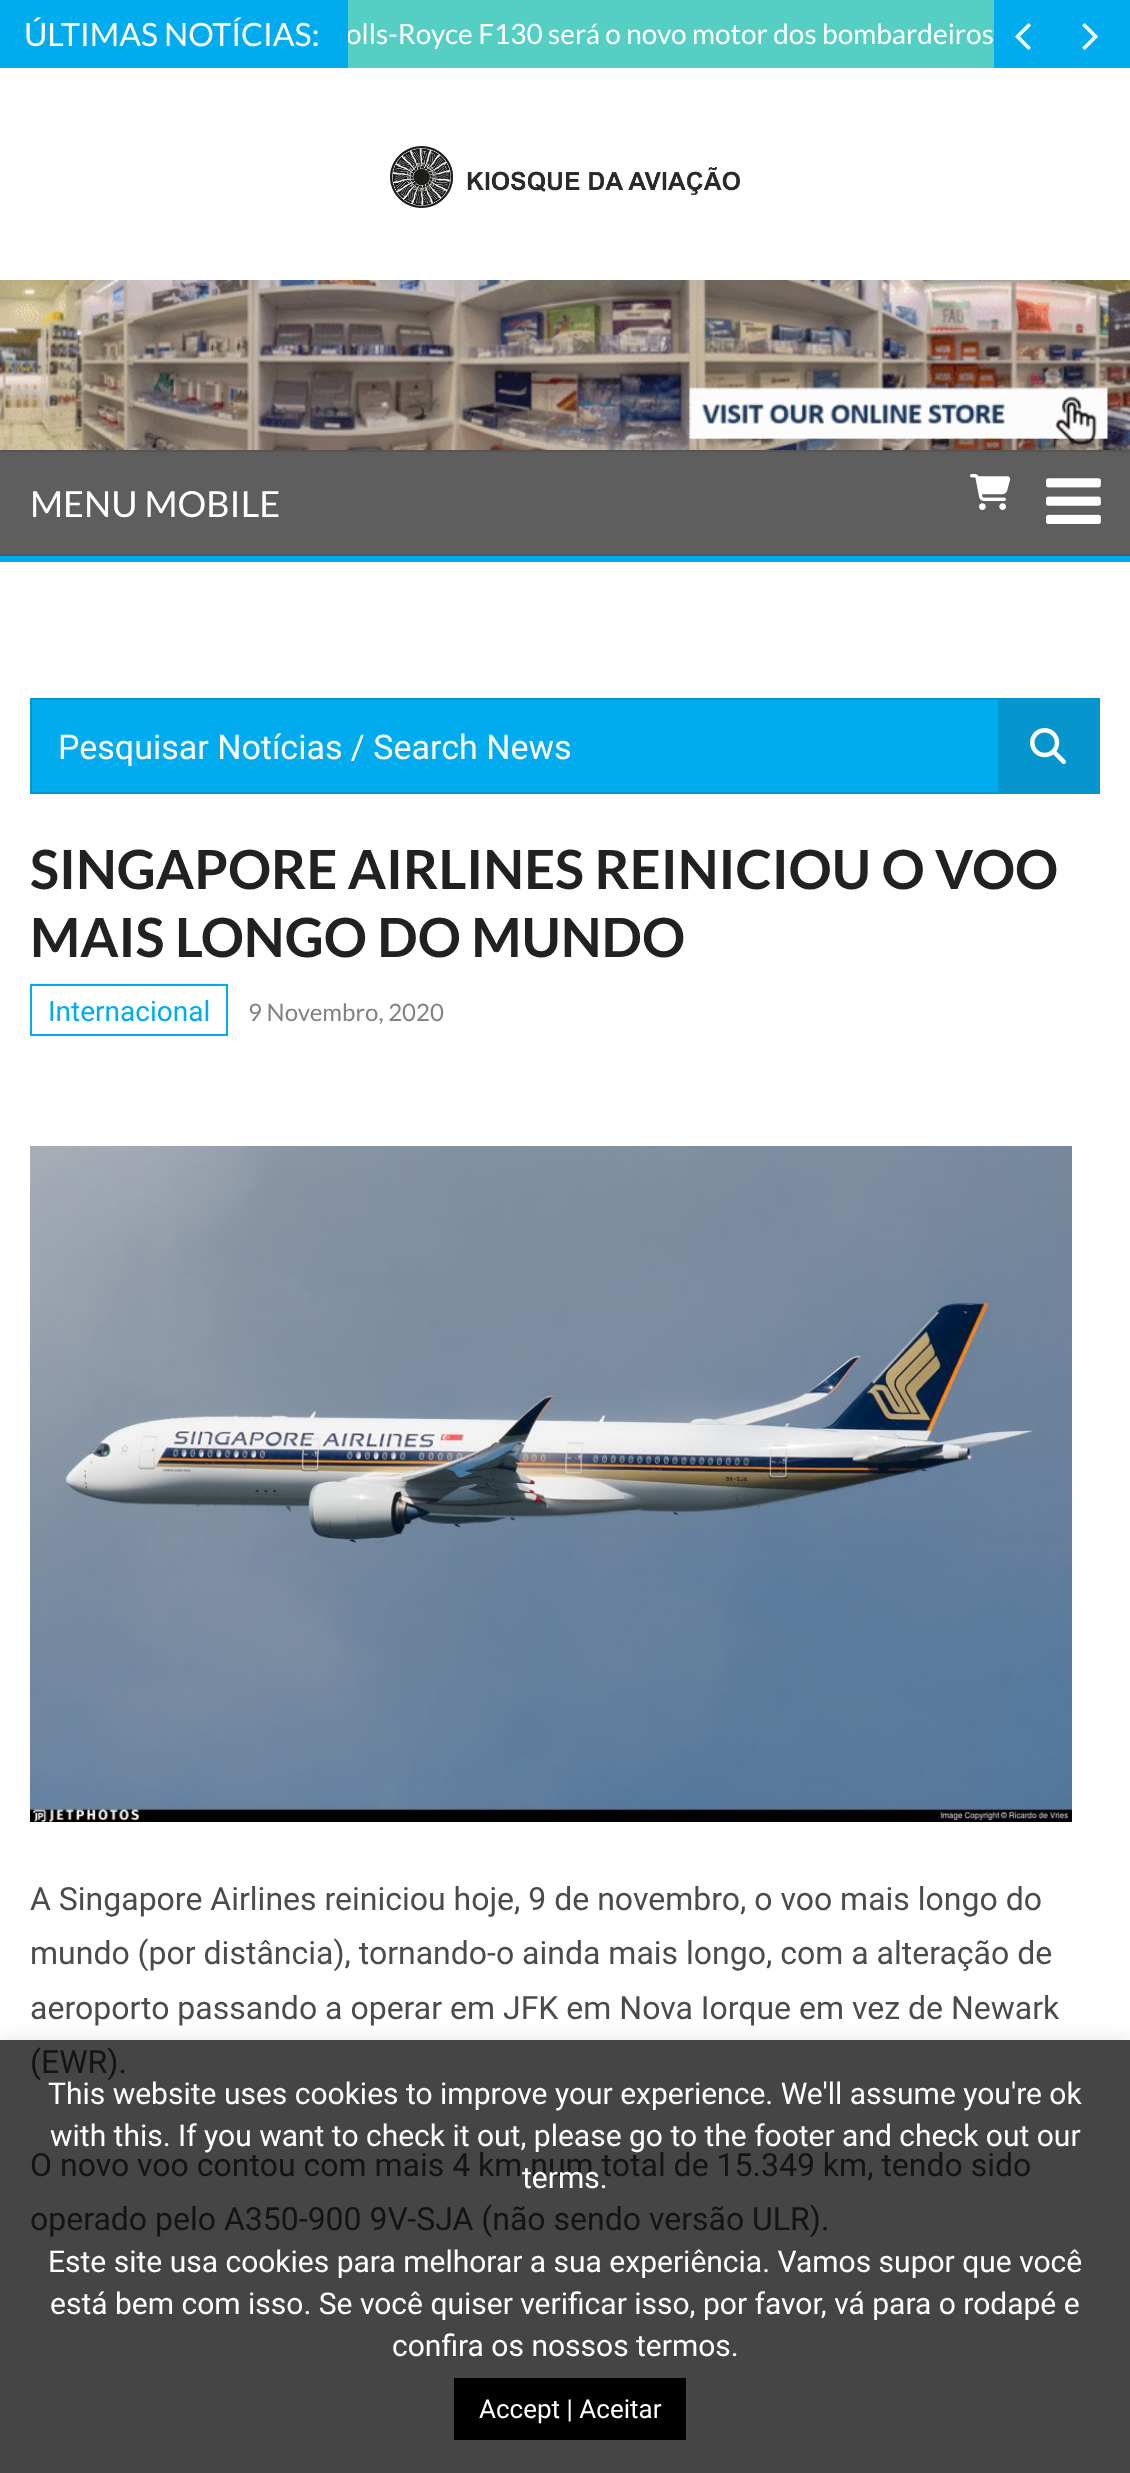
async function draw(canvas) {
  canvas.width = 1130
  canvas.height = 2473
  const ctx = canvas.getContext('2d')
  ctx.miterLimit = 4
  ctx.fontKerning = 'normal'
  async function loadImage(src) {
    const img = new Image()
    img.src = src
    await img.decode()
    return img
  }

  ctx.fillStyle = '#fff'
  ctx.fillRect(0, 0, 1130, 2473)
  ctx.fillStyle = '#454545'
  ctx.fillRect(0, 2040, 1130, 433)
  ctx.fillStyle = '#00aced'
  ctx.fillRect(0, 0, 1130, 68)
  ctx.font = '32px Lato'
  ctx.fillStyle = '#fff'
  ctx.fillText('ÚLTIMAS NOTÍCIAS:', 24, 46)
  ctx.fillStyle = '#55cfc4'
  ctx.fillRect(348, 0, 646, 68)
  ctx.save()
  ctx.beginPath()
  ctx.rect(348, 0, 646, 68)
  ctx.clip()
  ctx.font = '28px Lato'
  ctx.fillStyle = '#fff'
  ctx.fillText('olls-Royce F130 será o novo motor dos bombardeiros', 346, 44)
  ctx.restore()
  ctx.drawImage(await loadImage('image0.png'), 1015, 23, 16, 27)
  ctx.drawImage(await loadImage('image1.png'), 1082, 23, 16, 27)
  ctx.drawImage(await loadImage('image2.png'), 390, 146, 350, 62)
  ctx.drawImage(await loadImage('image3.png'), 0, 280, 1130, 170)
  ctx.fillStyle = '#00aced'
  ctx.fillRect(0, 556, 1130, 6)
  ctx.fillStyle = '#5e5e5e'
  ctx.fillRect(0, 452, 1130, 102)
  ctx.fillStyle = '#555'
  ctx.fillRect(0, 450, 1130, 2)
  ctx.fillRect(0, 554, 1130, 2)
  ctx.font = '36px Lato'
  ctx.fillStyle = '#fff'
  ctx.fillText('MENU MOBILE', 30, 517)
  ctx.drawImage(await loadImage('image4.png'), 1046, 478, 55, 46)
  ctx.drawImage(await loadImage('image5.png'), 970, 474, 41, 36)
  ctx.fillStyle = '#00aced'
  ctx.fillRect(32, 700, 966, 92)
  ctx.strokeStyle = '#0696cd'
  ctx.lineWidth = 2
  ctx.strokeRect(31, 699, 1068, 94)
  ctx.font = '34px Roboto'
  ctx.fillStyle = '#fff'
  ctx.fillText('Pesquisar Notícias / Search News', 58, 759)
  ctx.fillStyle = '#0696cd'
  ctx.fillRect(998, 700, 100, 92)
  ctx.drawImage(await loadImage('image6.png'), 1030, 728, 36, 36)
  ctx.font = 'bold 54px Lato'
  ctx.fillStyle = '#212121'
  ctx.fillText('SINGAPORE AIRLINES REINICIOU O VOO', 30, 889)
  ctx.fillText('MAIS LONGO DO MUNDO', 30, 957)
  ctx.strokeStyle = '#00aced'
  ctx.strokeRect(31, 985, 196, 50)
  ctx.font = '28px Roboto'
  ctx.fillStyle = '#00aced'
  ctx.fillText('Internacional', 48, 1021)
  ctx.font = '24px Lato'
  ctx.fillStyle = '#828282'
  ctx.fillText('9 Novembro, 2020', 248, 1021)
  ctx.drawImage(await loadImage('image7.png'), 30, 1146, 1042, 676)
  ctx.font = '32px Roboto'
  ctx.fillStyle = '#4b4b4b'
  ctx.fillText('A Singapore Airlines reiniciou hoje, 9 de novembro, o voo mais longo do', 30, 1910)
  ctx.fillText('mundo (por distância), tornando-o ainda mais longo, com a alteração de', 30, 1964)
  ctx.fillText('aeroporto passando a operar em JFK em Nova Iorque em vez de Newark', 30, 2019)
  ctx.fillStyle = '#141414'
  ctx.fillText('(EWR).', 30, 2073)
  ctx.fillText('O novo voo contou com mais 4 km num total de 15.349 km, tendo sido', 30, 2176)
  ctx.fillText('operado pelo A350-900 9V-SJA (não sendo versão ULR).', 30, 2230)
  ctx.save()
  ctx.beginPath()
  ctx.rect(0, 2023, 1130, 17)
  ctx.clip()
  ctx.fillStyle = '#acabab4d'
  ctx.filter = 'blur(10px)'
  ctx.beginPath()
  ctx.rect(0, 2038, 1130, 434)
  ctx.fill()
  ctx.filter = 'none'
  ctx.restore()
  ctx.font = '30px Roboto'
  ctx.fillStyle = '#fff'
  ctx.fillText('This website uses cookies to improve your experience. We\'ll assume you\'re ok', 48, 2104)
  ctx.fillText('with this. If you want to check it out, please go to the footer and check out our', 50, 2146)
  ctx.fillText('terms.', 522, 2188)
  ctx.fillText('Este site usa cookies para melhorar a sua experiência. Vamos supor que você', 48, 2272)
  ctx.fillText('está bem com isso. Se você quiser verificar isso, por favor, vá para o rodapé e', 50, 2314)
  ctx.fillText('confira os nossos termos.', 392, 2356)
  ctx.fillStyle = '#000'
  ctx.fillRect(454, 2378, 232, 62)
  ctx.font = '26px Roboto'
  ctx.fillStyle = '#fff'
  ctx.fillText('Accept | Aceitar', 479, 2418)
}

draw(document.querySelector('canvas'))
